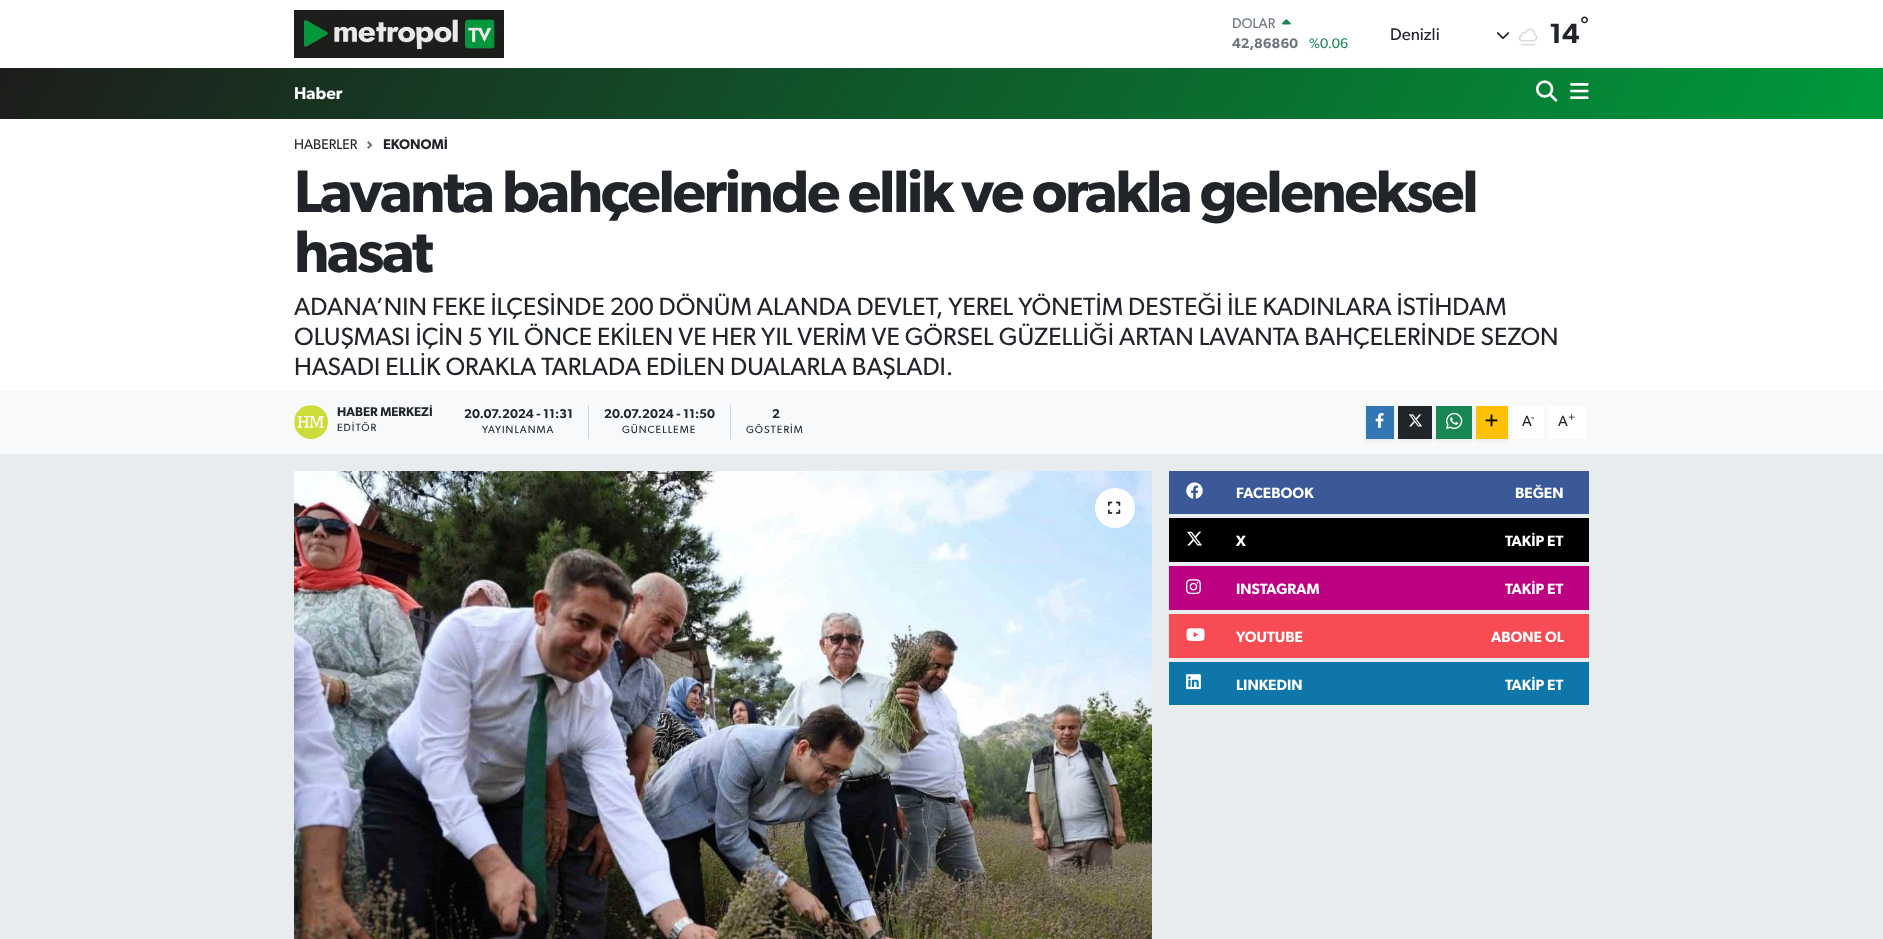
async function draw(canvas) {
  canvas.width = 1883
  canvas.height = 939
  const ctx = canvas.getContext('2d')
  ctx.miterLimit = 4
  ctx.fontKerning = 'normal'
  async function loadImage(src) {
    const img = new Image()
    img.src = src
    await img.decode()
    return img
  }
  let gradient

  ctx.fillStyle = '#e9ecef'
  ctx.fillRect(0, 0, 1883, 939)
  ctx.fillStyle = '#fff'
  ctx.fillRect(0, 0, 1883, 68)
  ctx.drawImage(await loadImage('image0.png'), 294, 10, 210, 48)
  ctx.font = '14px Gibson'
  ctx.fillStyle = '#6c757d'
  ctx.fillText('DOLAR', 1232, 28)
  ctx.drawImage(await loadImage('image1.png'), 1282, 19, 9, 6)
  ctx.font = '600 14px Gibson'
  ctx.fillText('42,86860', 1232, 48)
  ctx.font = '14px Gibson'
  ctx.fillStyle = '#198754'
  ctx.fillText('%0.06', 1309, 48)
  ctx.font = '17px Gibson'
  ctx.fillStyle = '#212529'
  ctx.fillText('Denizli', 1390, 40)
  ctx.drawImage(await loadImage('image2.png'), 1497, 32, 12, 7)
  ctx.drawImage(await loadImage('image3.png'), 1518, 28, 20, 18)
  ctx.font = '600 21px Gibson'
  ctx.fillText('°', 1580, 32)
  ctx.font = '600 28px Gibson'
  ctx.fillText('14', 1549, 43)
  gradient = ctx.createLinearGradient(224, -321, 1659, 508)
  gradient.addColorStop(0, '#1d1d1b')
  gradient.addColorStop(1, '#00993b')
  ctx.fillStyle = gradient
  ctx.fillRect(0, 68, 1883, 51)
  ctx.font = '600 17px Gibson'
  ctx.fillStyle = '#fff'
  ctx.fillText('Haber', 294, 99)
  ctx.drawImage(await loadImage('image4.png'), 1536, 80, 22, 22)
  ctx.drawImage(await loadImage('image5.png'), 1570, 83, 19, 16)
  ctx.fillRect(0, 119, 1883, 272)
  ctx.font = '14px Gibson'
  ctx.fillStyle = '#212529'
  ctx.fillText('HABERLER', 294, 149)
  ctx.drawImage(await loadImage('image6.png'), 367, 141, 6, 8)
  ctx.font = '600 14px Gibson'
  ctx.fillText('EKONOMİ', 383, 149)
  ctx.letterSpacing = '-2.3px'
  ctx.font = '600 60px Gibson'
  ctx.fillText('Lavanta bahçelerinde ellik ve orakla geleneksel', 294, 212)
  ctx.fillText('hasat', 294, 272)
  ctx.letterSpacing = '0px'
  ctx.font = '25px Gibson'
  ctx.fillText('ADANA’NIN FEKE İLÇESİNDE 200 DÖNÜM ALANDA DEVLET, YEREL YÖNETİM DESTEĞİ İLE KADINLARA İSTİHDAM', 294, 315)
  ctx.fillText('OLUŞMASI İÇİN 5 YIL ÖNCE EKİLEN VE HER YIL VERİM VE GÖRSEL GÜZELLİĞİ ARTAN LAVANTA BAHÇELERİNDE SEZON', 294, 345)
  ctx.fillText('HASADI ELLİK ORAKLA TARLADA EDİLEN DUALARLA BAŞLADI.', 294, 375)
  ctx.fillStyle = '#f8f9fa'
  ctx.fillRect(0, 391, 1883, 63)
  ctx.drawImage(await loadImage('image7.png'), 294, 405, 34, 34)
  ctx.font = '600 12.75px Gibson'
  ctx.fillStyle = '#212529'
  ctx.fillText('HABER MERKEZİ', 337, 416)
  ctx.letterSpacing = '1px'
  ctx.font = '10.5px Gibson'
  ctx.fillText('EDİTÖR', 337, 431)
  ctx.fillStyle = '#ced4da'
  ctx.fillRect(588, 405, 1, 34)
  ctx.letterSpacing = '0px'
  ctx.font = '600 12.75px Gibson'
  ctx.fillStyle = '#212529'
  ctx.fillText('20.07.2024 - 11:31', 464, 418)
  ctx.letterSpacing = '1px'
  ctx.font = '10.5px Gibson'
  ctx.fillText('YAYINLANMA', 482, 433)
  ctx.fillStyle = '#ced4da'
  ctx.fillRect(730, 405, 1, 34)
  ctx.letterSpacing = '0px'
  ctx.font = '600 12.75px Gibson'
  ctx.fillStyle = '#212529'
  ctx.fillText('20.07.2024 - 11:50', 604, 418)
  ctx.letterSpacing = '1px'
  ctx.font = '10.5px Gibson'
  ctx.fillText('GÜNCELLEME', 622, 433)
  ctx.letterSpacing = '0px'
  ctx.font = '600 12.75px Gibson'
  ctx.fillText('2', 772, 418)
  ctx.letterSpacing = '1px'
  ctx.font = '10.5px Gibson'
  ctx.fillText('GÖSTERİM', 746, 433)
  ctx.fillStyle = '#00000012'
  ctx.filter = 'blur(2px)'
  ctx.beginPath()
  ctx.rect(1366, 408, 28, 33)
  ctx.fill()
  ctx.filter = 'none'
  ctx.fillStyle = '#3276b3'
  ctx.fillRect(1366, 406, 28, 33)
  ctx.drawImage(await loadImage('image8.png'), 1375, 413, 9, 15)
  ctx.fillStyle = '#00000012'
  ctx.filter = 'blur(2px)'
  ctx.beginPath()
  ctx.rect(1398, 408, 34, 33)
  ctx.fill()
  ctx.filter = 'none'
  ctx.fillStyle = '#212529'
  ctx.fillRect(1398, 406, 34, 33)
  ctx.drawImage(await loadImage('image9.png'), 1408, 414, 14, 13)
  ctx.fillStyle = '#00000012'
  ctx.filter = 'blur(2px)'
  ctx.beginPath()
  ctx.rect(1436, 408, 36, 33)
  ctx.fill()
  ctx.filter = 'none'
  ctx.fillStyle = '#198754'
  ctx.fillRect(1436, 406, 36, 33)
  ctx.drawImage(await loadImage('image10.png'), 1446, 412, 17, 18)
  ctx.fillStyle = '#fff'
  ctx.fillRect(1512, 406, 32, 33)
  ctx.fillStyle = '#00000012'
  ctx.filter = 'blur(2px)'
  ctx.beginPath()
  ctx.rect(1476, 408, 32, 33)
  ctx.fill()
  ctx.filter = 'none'
  ctx.fillStyle = '#ffc107'
  ctx.fillRect(1476, 406, 32, 33)
  ctx.drawImage(await loadImage('image11.png'), 1485, 414, 13, 13)
  ctx.letterSpacing = '0px'
  ctx.font = '15px Gibson'
  ctx.fillStyle = '#212529'
  ctx.fillText('A', 1522, 426)
  ctx.font = '11px Gibson'
  ctx.fillText('-', 1531, 421)
  ctx.fillStyle = '#fff'
  ctx.fillRect(1548, 406, 37, 33)
  ctx.font = '15px Gibson'
  ctx.fillStyle = '#212529'
  ctx.fillText('A', 1558, 426)
  ctx.font = '11px Gibson'
  ctx.fillText('+', 1568, 421)
  ctx.drawImage(await loadImage('image12.png'), 294, 471, 858, 468)
  ctx.fillStyle = '#fff'
  ctx.beginPath()
  ctx.arc(1115, 508, 20, 0, 2 * Math.PI)
  ctx.fill()
  ctx.drawImage(await loadImage('image13.png'), 1108, 501, 13, 13)
  ctx.fillStyle = '#3b5998'
  ctx.fillRect(1169, 471, 420, 43)
  ctx.drawImage(await loadImage('image14.png'), 1186, 482, 17, 17)
  ctx.font = '600 15px Gibson'
  ctx.fillStyle = '#fff'
  ctx.fillText('FACEBOOK', 1236, 498)
  ctx.fillText('BEĞEN', 1515, 498)
  ctx.fillStyle = '#000'
  ctx.fillRect(1169, 518, 420, 44)
  ctx.drawImage(await loadImage('image15.png'), 1187, 531, 15, 15)
  ctx.fillStyle = '#fff'
  ctx.fillText('X', 1236, 546)
  ctx.fillText('TAKİP ET', 1505, 546)
  ctx.fillStyle = '#bd0082'
  ctx.fillRect(1169, 566, 420, 44)
  ctx.drawImage(await loadImage('image16.png'), 1186, 579, 15, 16)
  ctx.fillStyle = '#fff'
  ctx.fillText('INSTAGRAM', 1236, 594)
  ctx.fillText('TAKİP ET', 1505, 594)
  ctx.fillStyle = '#f74c53'
  ctx.fillRect(1169, 614, 420, 44)
  ctx.drawImage(await loadImage('image17.png'), 1186, 628, 19, 13)
  ctx.fillStyle = '#fff'
  ctx.fillText('YOUTUBE', 1236, 642)
  ctx.fillText('ABONE OL', 1491, 642)
  ctx.fillStyle = '#0e76a8'
  ctx.fillRect(1169, 662, 420, 43)
  ctx.drawImage(await loadImage('image18.png'), 1186, 674, 15, 16)
  ctx.fillStyle = '#fff'
  ctx.fillText('LINKEDIN', 1236, 690)
  ctx.fillText('TAKİP ET', 1505, 690)
}

draw(document.querySelector('canvas'))
